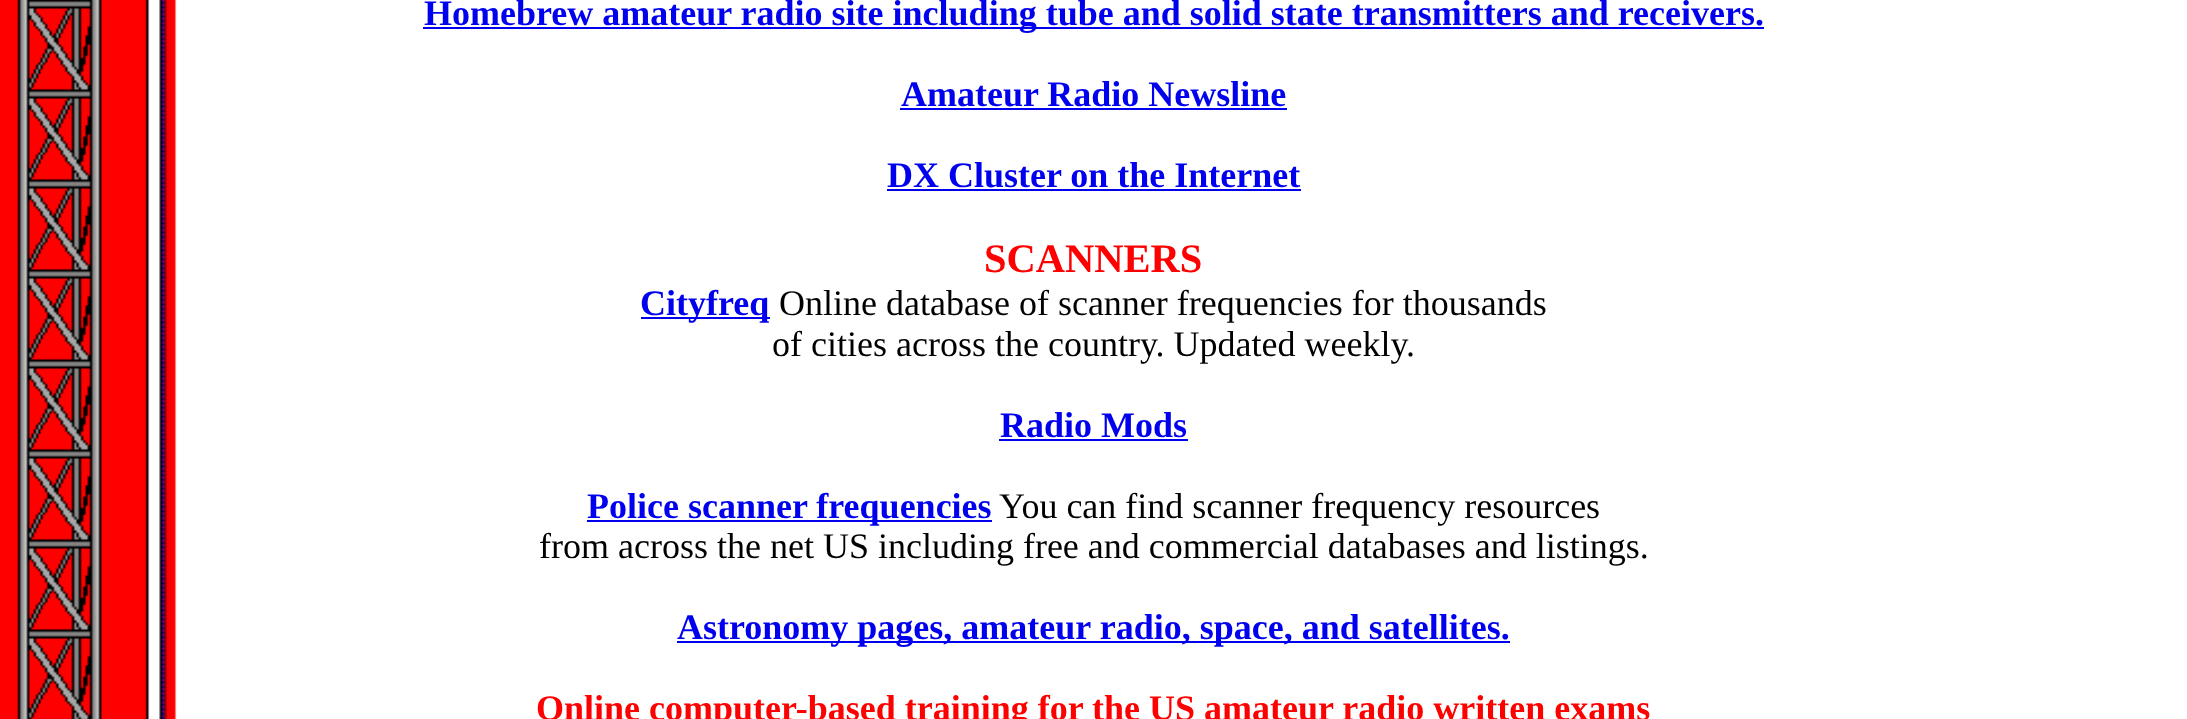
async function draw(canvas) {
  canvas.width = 2187
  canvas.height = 719
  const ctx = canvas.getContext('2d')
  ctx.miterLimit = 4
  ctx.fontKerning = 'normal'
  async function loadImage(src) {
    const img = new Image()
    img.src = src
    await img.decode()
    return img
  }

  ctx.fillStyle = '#fff'
  ctx.fillRect(0, 0, 2187, 719)
  ctx.drawImage(await loadImage('image0.png'), 0, 0, 177, 719)
  ctx.fillStyle = '#00e'
  ctx.fillRect(423, 27, 1341, 2)
  ctx.font = 'bold 36px Liberation Serif'
  ctx.fillText('Homebrew amateur radio site including tube and solid state transmitters and receivers.', 424, 25)
  ctx.fillText('Amateur Radio Newsline', 901, 106)
  ctx.fillRect(900, 108, 387, 2)
  ctx.fillText('DX Cluster on the Internet', 887, 187)
  ctx.fillRect(887, 189, 414, 2)
  ctx.font = 'bold 40.5px Liberation Serif'
  ctx.fillStyle = '#f00'
  ctx.fillText('SCANNERS', 984, 272)
  ctx.fillStyle = '#00e'
  ctx.fillRect(641, 317, 129, 2)
  ctx.font = 'bold 36px Liberation Serif'
  ctx.fillText('Cityfreq', 640, 315)
  ctx.font = '36px Liberation Serif'
  ctx.fillStyle = '#000'
  ctx.fillText('Online database of scanner frequencies for thousands', 779, 315)
  ctx.fillText('of cities across the country. Updated weekly.', 772, 356)
  ctx.font = 'bold 36px Liberation Serif'
  ctx.fillStyle = '#00e'
  ctx.fillText('Radio Mods', 1000, 437)
  ctx.fillRect(999, 439, 189, 2)
  ctx.fillRect(587, 520, 405, 2)
  ctx.fillText('Police scanner frequencies', 587, 518)
  ctx.font = '36px Liberation Serif'
  ctx.fillStyle = '#000'
  ctx.fillText('You can find scanner frequency resources', 999, 518)
  ctx.fillText('from across the net US including free and commercial databases and listings.', 539, 558)
  ctx.fillStyle = '#00e'
  ctx.fillRect(677, 641, 833, 2)
  ctx.font = 'bold 36px Liberation Serif'
  ctx.fillText('Astronomy pages, amateur radio, space, and satellites.', 677, 639)
  ctx.fillStyle = '#f00'
  ctx.fillText('Online computer-based training for the US amateur radio written exams', 536, 720)
}

draw(document.querySelector('canvas'))
